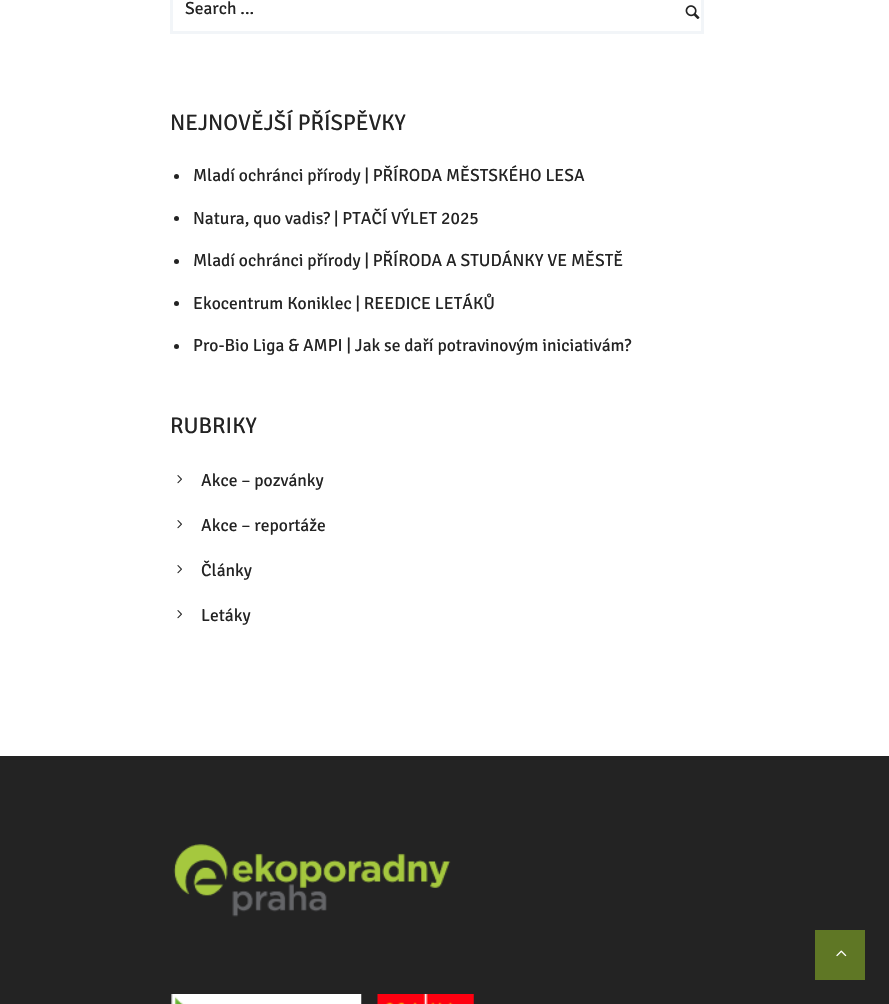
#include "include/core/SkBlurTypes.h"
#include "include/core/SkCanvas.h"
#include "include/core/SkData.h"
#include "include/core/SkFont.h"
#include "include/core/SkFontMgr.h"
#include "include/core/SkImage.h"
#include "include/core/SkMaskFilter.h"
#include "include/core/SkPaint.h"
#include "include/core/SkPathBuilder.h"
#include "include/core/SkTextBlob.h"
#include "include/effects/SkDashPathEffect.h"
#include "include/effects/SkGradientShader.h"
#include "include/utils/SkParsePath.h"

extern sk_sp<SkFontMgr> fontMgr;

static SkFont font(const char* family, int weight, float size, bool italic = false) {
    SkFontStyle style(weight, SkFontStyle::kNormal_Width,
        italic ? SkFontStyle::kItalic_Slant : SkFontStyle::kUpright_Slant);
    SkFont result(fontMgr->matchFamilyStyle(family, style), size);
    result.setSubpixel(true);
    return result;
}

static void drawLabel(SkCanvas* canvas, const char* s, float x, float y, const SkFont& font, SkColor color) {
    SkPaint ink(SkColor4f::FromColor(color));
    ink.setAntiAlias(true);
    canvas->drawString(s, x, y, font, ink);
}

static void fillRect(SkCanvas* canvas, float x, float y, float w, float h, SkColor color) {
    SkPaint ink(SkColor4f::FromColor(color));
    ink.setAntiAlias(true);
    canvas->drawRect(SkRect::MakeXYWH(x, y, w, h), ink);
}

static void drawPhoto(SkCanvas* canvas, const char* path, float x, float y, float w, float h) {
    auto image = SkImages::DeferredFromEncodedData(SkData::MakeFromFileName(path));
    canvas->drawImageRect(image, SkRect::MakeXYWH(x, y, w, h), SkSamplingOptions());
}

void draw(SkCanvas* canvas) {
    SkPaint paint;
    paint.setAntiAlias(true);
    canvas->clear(0xFFFFFFFF);
    paint.setStroke(true);
    paint.setStrokeWidth(3);
    paint.setColor(0xFFF2F5F8);
    canvas->drawRect(SkRect::MakeXYWH(171.5f, -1.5f, 531, 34), paint);
    SkFont font1 = font("Signika Negative", 400, 17.5f);
    drawLabel(canvas, "Search ...", 185, 14, font1, 0xFF232323);
    drawPhoto(canvas, "assets/img1.png", 685, 5, 15, 14);
    SkFont font2 = font("Signika Negative", 400, 22.5f);
    drawLabel(canvas, "NEJNOVĚJŠÍ PŘÍSPĚVKY", 170, 130, font2, 0xFF232323);
    paint.setStroke(false);
    paint.setColor(0xFF232323);
    canvas->drawCircle(176.5f, 176.5f, 2.5f, paint);
    drawLabel(canvas, "Mladí ochránci přírody | PŘÍRODA MĚSTSKÉHO LESA", 193, 181, font1, 0xFF232323);
    canvas->drawCircle(176.5f, 218.5f, 2.5f, paint);
    drawLabel(canvas, "Natura, quo vadis? | PTAČÍ VÝLET 2025", 193, 224, font1, 0xFF232323);
    canvas->drawCircle(176.5f, 261.5f, 2.5f, paint);
    drawLabel(canvas, "Mladí ochránci přírody | PŘÍRODA A STUDÁNKY VE MĚSTĚ", 193, 266, font1, 0xFF232323);
    canvas->drawCircle(176.5f, 303.5f, 2.5f, paint);
    drawLabel(canvas, "Ekocentrum Koniklec | REEDICE LETÁKŮ", 193, 309, font1, 0xFF232323);
    canvas->drawCircle(176.5f, 346.5f, 2.5f, paint);
    drawLabel(canvas, "Pro-Bio Liga & AMPI | Jak se daří potravinovým iniciativám?", 193, 351, font1, 0xFF232323);
    drawLabel(canvas, "RUBRIKY", 170, 433, font2, 0xFF232323);
    drawPhoto(canvas, "assets/img2.png", 177, 475, 5, 9);
    drawLabel(canvas, "Akce – pozvánky", 201, 486, font1, 0xFF232323);
    drawPhoto(canvas, "assets/img2.png", 177, 520, 5, 9);
    drawLabel(canvas, "Akce – reportáže", 201, 531, font1, 0xFF232323);
    drawPhoto(canvas, "assets/img2.png", 177, 565, 5, 9);
    drawLabel(canvas, "Články", 201, 576, font1, 0xFF232323);
    drawPhoto(canvas, "assets/img2.png", 177, 610, 5, 9);
    drawLabel(canvas, "Letáky", 201, 621, font1, 0xFF232323);
    fillRect(canvas, 0, 756, 889, 248, 0xFF232323);
    drawPhoto(canvas, "assets/img3.png", 173, 844, 278, 73);
    drawPhoto(canvas, "assets/img4.png", 171, 994, 191, 10);
    drawPhoto(canvas, "assets/img5.png", 377, 994, 97, 10);
    fillRect(canvas, 815, 930, 50, 50, 0xFF5F7725);
    drawPhoto(canvas, "assets/img6.png", 836, 950, 11, 7);
}
